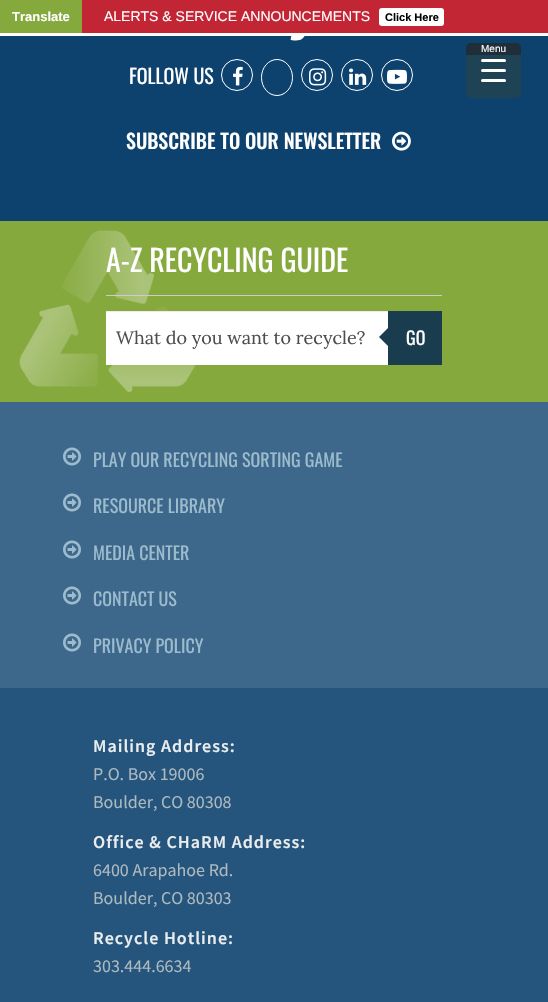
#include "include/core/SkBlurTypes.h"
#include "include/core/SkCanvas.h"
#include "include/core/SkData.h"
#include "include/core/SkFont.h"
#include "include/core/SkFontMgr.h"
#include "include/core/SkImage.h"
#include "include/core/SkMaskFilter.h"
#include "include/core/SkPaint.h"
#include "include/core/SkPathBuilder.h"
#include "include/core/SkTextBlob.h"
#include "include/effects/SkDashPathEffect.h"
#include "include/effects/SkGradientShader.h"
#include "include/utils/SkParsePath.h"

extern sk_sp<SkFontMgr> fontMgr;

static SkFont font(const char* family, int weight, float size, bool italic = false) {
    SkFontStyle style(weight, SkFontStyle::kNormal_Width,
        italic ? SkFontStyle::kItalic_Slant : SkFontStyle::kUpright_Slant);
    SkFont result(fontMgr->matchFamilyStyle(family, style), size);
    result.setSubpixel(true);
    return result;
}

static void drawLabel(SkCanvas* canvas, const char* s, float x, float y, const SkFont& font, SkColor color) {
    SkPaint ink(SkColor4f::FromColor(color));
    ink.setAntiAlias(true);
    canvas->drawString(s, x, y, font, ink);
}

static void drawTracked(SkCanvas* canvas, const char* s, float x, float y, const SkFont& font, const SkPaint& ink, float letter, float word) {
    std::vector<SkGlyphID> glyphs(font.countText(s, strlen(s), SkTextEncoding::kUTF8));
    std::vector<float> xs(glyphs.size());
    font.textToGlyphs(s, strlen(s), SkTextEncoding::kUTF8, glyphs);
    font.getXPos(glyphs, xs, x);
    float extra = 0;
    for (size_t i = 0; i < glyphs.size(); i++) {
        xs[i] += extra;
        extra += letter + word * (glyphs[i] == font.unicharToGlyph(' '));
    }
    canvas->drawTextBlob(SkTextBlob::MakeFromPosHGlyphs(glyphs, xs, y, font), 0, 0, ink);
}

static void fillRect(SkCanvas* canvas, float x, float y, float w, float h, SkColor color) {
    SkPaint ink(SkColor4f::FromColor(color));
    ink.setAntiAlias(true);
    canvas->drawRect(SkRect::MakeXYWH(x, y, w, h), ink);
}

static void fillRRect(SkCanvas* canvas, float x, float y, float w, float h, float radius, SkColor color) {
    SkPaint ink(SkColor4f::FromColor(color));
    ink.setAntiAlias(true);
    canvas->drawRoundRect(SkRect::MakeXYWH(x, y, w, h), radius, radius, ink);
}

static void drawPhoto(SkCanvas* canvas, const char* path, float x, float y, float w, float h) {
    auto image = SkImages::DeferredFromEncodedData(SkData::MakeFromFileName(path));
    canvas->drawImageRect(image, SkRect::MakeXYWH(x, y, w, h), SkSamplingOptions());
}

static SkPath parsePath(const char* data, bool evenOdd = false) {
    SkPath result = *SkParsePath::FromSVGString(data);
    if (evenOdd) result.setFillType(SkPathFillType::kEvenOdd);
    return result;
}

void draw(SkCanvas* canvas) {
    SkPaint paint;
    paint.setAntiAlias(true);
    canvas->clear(0xFF86A93E);
    SkFont font1 = font("Liberation Sans", 700, 13);
    drawLabel(canvas, "Translate", 12, 21, font1, 0xFFFFFFFF);
    fillRect(canvas, 0, 36, 548, 185, 0xFF0D426F);
    fillRRect(canvas, 466, 43, 55, 55, 5, 0xFF1D4354);
    paint.setColor(0xFF202E39);
    canvas->drawPath(parsePath("M471 43H516C519 43 521 45 521 48V55H466V48C466 45 468 43 471 43Z"), paint);
    SkFont font2 = font("Liberation Sans", 400, 10);
    drawLabel(canvas, "Menu", 481, 52, font2, 0xFFFFFFFF);
    fillRRect(canvas, 481, 69, 25, 3, 1.5f, 0xFFFFFFFF);
    fillRRect(canvas, 481, 59, 25, 3, 1.5f, 0xFFFFFFFF);
    fillRRect(canvas, 481, 79, 25, 3, 1.5f, 0xFFFFFFFF);
    drawPhoto(canvas, "assets/img1.png", 290, 36, 15, 5);
    SkFont font3 = font("Oswald", 400, 20);
    drawLabel(canvas, "FOLLOW US", 129, 84, font3, 0xFFFFFFFF);
    paint.setStroke(true);
    paint.setStrokeWidth(1);
    paint.setColor(0xFFFFFFFF);
    canvas->drawCircle(237, 75, 15.5f, paint);
    drawPhoto(canvas, "assets/img2.png", 233, 66, 10, 20);
    canvas->drawPath(parsePath("M277 59.5C285.5 59.5 292.5 67.5 292.5 77.5C292.5 87.5 285.5 95.5 277 95.5C268.5 95.5 261.5 87.5 261.5 77.5C261.5 67.5 268.5 59.5 277 59.5Z"), paint);
    canvas->drawCircle(317, 75, 15.5f, paint);
    drawPhoto(canvas, "assets/img3.png", 309, 68, 18, 18);
    canvas->drawCircle(357, 75, 15.5f, paint);
    drawPhoto(canvas, "assets/img4.png", 349, 68, 18, 17);
    canvas->drawCircle(397, 75, 15.5f, paint);
    drawPhoto(canvas, "assets/img5.png", 387, 69, 20, 15);
    SkFont font4 = font("Oswald", 500, 20);
    drawLabel(canvas, "SUBSCRIBE TO OUR NEWSLETTER", 126, 149, font4, 0xFFFFFFFF);
    drawPhoto(canvas, "assets/img6.png", 392, 131, 19, 20);
    drawPhoto(canvas, "assets/img7.png", 19, 230, 177, 162);
    SkFont font5 = font("Oswald", 400, 30);
    drawLabel(canvas, "A-Z RECYCLING GUIDE", 106, 272, font5, 0xFFFFFFFF);
    fillRect(canvas, 106, 295, 336, 1, 0xFFCCCCCC);
    fillRect(canvas, 106, 312, 282, 53, 0xFFFFFFFF);
    fillRect(canvas, 106, 311, 282, 1, 0xFFECECEC);
    SkFont font6 = font("Lora", 400, 18);
    drawLabel(canvas, "What do you want to recycle?", 116, 344, font6, 0xFF4D4D4F);
    fillRect(canvas, 388, 311, 54, 54, 0xFF193C4F);
    paint.setStroke(false);
    paint.setColor(0xFF193C4F);
    canvas->drawPath(parsePath("M389 327V347L379 337Z"), paint);
    SkFont font7 = font("Oswald", 400, 18);
    drawLabel(canvas, "GO", 406, 345, font7, 0xFFFFFFFF);
    fillRect(canvas, 0, 402, 548, 286, 0xFF3D688C);
    drawPhoto(canvas, "assets/img8.png", 63, 447, 18, 19);
    drawLabel(canvas, "PLAY OUR RECYCLING SORTING GAME", 93, 467, font7, 0xFF9CBCCD);
    drawPhoto(canvas, "assets/img8.png", 63, 493, 18, 19);
    drawLabel(canvas, "RESOURCE LIBRARY", 93, 513, font7, 0xFF9CBCCD);
    drawPhoto(canvas, "assets/img8.png", 63, 540, 18, 19);
    drawLabel(canvas, "MEDIA CENTER", 93, 560, font7, 0xFF9CBCCD);
    drawPhoto(canvas, "assets/img8.png", 63, 586, 18, 19);
    drawLabel(canvas, "CONTACT US", 93, 606, font7, 0xFF9CBCCD);
    drawPhoto(canvas, "assets/img8.png", 63, 633, 18, 19);
    drawLabel(canvas, "PRIVACY POLICY", 93, 653, font7, 0xFF9CBCCD);
    fillRect(canvas, 0, 688, 548, 314, 0xFF25557D);
    SkFont font8 = font("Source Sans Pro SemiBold", 600, 18);
    paint.setColor(0xFFEAEDEE);
    drawTracked(canvas, "Mailing Address:", 93, 752, font8, paint, 1, 0);
    SkFont font9 = font("Source Sans Pro", 400, 18);
    drawLabel(canvas, "P.O. Box 19006", 93, 780, font9, 0xFFADB9BF);
    drawLabel(canvas, "Boulder, CO 80308", 93, 808, font9, 0xFFADB9BF);
    drawTracked(canvas, "Office & CHaRM Address:", 93, 848, font8, paint, 1, 0);
    drawLabel(canvas, "6400 Arapahoe Rd.", 93, 876, font9, 0xFFADB9BF);
    drawLabel(canvas, "Boulder, CO 80303", 93, 904, font9, 0xFFADB9BF);
    drawTracked(canvas, "Recycle Hotline:", 93, 944, font8, paint, 1, 0);
    drawLabel(canvas, "303.444.6634", 93, 972, font9, 0xFFADB9BF);
    fillRect(canvas, 82, 0, 466, 33, 0xFFC22635);
    fillRect(canvas, 0, 33, 548, 3, 0xFFFFFFFF);
    SkFont font10 = font("Liberation Sans", 400, 14);
    drawLabel(canvas, "ALERTS & SERVICE ANNOUNCEMENTS", 104, 21, font10, 0xFFFFFFFF);
    fillRRect(canvas, 379, 8, 65, 18, 3, 0xFFFFFFFF);
    SkFont font11 = font("Liberation Sans", 700, 11);
    drawLabel(canvas, "Click Here", 385, 21, font11, 0xFF000000);
}
